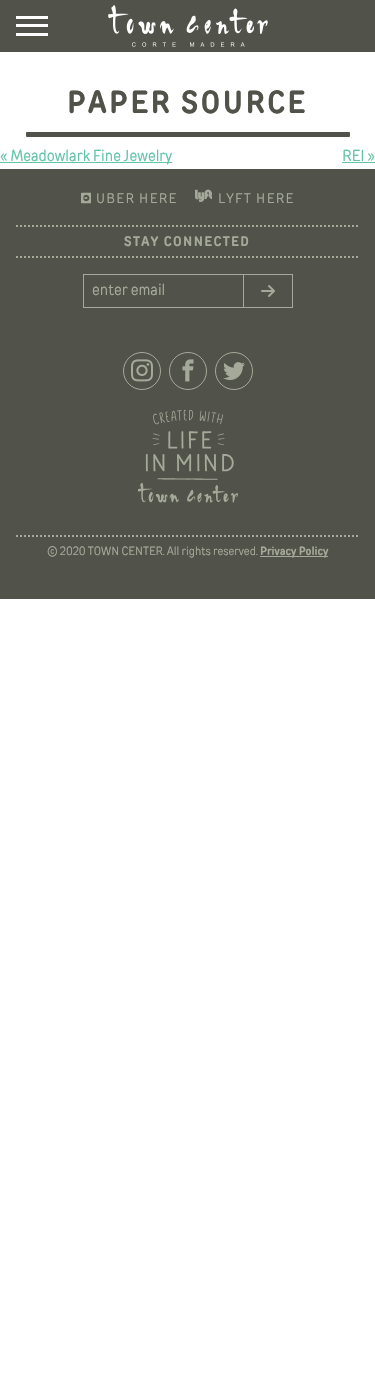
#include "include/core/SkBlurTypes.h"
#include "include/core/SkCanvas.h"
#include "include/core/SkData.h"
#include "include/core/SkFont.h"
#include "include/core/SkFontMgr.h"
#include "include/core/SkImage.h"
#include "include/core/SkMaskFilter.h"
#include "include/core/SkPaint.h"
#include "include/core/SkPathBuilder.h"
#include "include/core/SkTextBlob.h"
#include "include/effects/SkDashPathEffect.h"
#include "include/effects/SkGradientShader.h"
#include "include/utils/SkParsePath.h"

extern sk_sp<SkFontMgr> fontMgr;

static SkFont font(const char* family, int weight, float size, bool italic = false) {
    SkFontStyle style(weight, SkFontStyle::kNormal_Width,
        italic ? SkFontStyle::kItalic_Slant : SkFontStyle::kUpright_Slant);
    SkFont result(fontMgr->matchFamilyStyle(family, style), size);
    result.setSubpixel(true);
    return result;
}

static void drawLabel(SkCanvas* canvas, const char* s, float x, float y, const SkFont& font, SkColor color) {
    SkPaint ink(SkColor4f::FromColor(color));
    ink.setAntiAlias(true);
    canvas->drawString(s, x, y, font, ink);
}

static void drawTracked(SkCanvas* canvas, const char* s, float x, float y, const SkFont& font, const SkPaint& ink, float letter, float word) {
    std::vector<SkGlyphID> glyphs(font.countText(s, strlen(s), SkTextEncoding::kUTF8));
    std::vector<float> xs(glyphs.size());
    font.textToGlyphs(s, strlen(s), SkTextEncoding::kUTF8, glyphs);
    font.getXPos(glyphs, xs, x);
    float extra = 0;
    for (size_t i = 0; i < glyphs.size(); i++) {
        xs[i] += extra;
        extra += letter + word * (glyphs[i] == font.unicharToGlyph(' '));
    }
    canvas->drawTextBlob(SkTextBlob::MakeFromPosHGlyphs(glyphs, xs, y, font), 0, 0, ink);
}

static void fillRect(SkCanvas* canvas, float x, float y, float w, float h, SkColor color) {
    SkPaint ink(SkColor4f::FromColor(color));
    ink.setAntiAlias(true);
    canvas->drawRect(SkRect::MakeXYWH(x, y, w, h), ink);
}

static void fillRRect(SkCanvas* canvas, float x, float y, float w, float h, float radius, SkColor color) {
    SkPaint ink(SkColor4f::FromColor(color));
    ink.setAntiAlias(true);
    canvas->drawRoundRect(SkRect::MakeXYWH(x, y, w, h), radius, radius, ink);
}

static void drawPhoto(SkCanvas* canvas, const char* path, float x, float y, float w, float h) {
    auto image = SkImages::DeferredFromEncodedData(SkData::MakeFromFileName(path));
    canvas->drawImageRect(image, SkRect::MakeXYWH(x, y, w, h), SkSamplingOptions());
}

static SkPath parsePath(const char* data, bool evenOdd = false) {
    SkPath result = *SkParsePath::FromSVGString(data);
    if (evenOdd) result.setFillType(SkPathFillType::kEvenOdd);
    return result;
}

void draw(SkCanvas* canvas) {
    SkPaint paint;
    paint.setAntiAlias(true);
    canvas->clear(0xFFFFFFFF);
    fillRect(canvas, 0, 0, 375, 52, 0xFF51534A);
    fillRect(canvas, 16, 33, 32, 3, 0xFFFFFFFF);
    fillRect(canvas, 16, 16, 32, 3, 0xFFFFFFFF);
    fillRect(canvas, 16, 24, 32, 3, 0xFFFFFFFF);
    drawPhoto(canvas, "assets/img1.png", 108, 5, 160, 42);
    SkFont font1 = font("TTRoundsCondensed", 400, 32);
    paint.setColor(0xFF51534A);
    drawTracked(canvas, "PAPER SOURCE", 67, 113, font1, paint, 2.5f, 0);
    fillRRect(canvas, 26, 132, 324, 5, 1, 0xFF51534A);
    fillRect(canvas, 0, 162, 172, 1, 0xFF63C4A6);
    SkFont font2 = font("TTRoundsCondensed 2", 400, 16);
    drawLabel(canvas, "« Meadowlark Fine Jewelry", 0, 161, font2, 0xFF63C4A6);
    drawLabel(canvas, "REI »", 342, 161, font2, 0xFF63C4A6);
    fillRect(canvas, 342, 162, 33, 1, 0xFF63C4A6);
    fillRect(canvas, 0, 169, 375, 430, 0xFF51534A);
    drawPhoto(canvas, "assets/img2.png", 81, 192, 10, 12);
    SkFont font3 = font("TTRoundsCondensed 2", 400, 14);
    paint.setColor(0xFFA5A999);
    drawTracked(canvas, "UBER HERE", 96, 203, font3, paint, 1.4f, 0);
    drawPhoto(canvas, "assets/img3.png", 195, 189, 17, 13);
    drawTracked(canvas, "LYFT HERE", 218, 203, font3, paint, 1.4f, 0);
    paint.setStroke(true);
    paint.setStrokeWidth(2);
    paint.setPathEffect(SkDashPathEffect::Make({{2, 2}}, 0));
    canvas->drawPath(parsePath("M16 226H359"), paint);
    paint.setPathEffect(nullptr);
    paint.setPathEffect(SkDashPathEffect::Make({{2, 2}}, 0));
    canvas->drawPath(parsePath("M16 257H359"), paint);
    paint.setPathEffect(nullptr);
    SkFont font4 = font("TTRoundsCondensed", 400, 14);
    paint.setStroke(false);
    drawTracked(canvas, "STAY CONNECTED", 124, 246, font4, paint, 1.4f, 0);
    fillRect(canvas, 83, 274, 160, 1, 0xFFA5A999);
    fillRect(canvas, 83, 307, 160, 1, 0xFFA5A999);
    fillRect(canvas, 83, 274, 1, 34, 0xFFA5A999);
    drawLabel(canvas, "enter email", 92, 295, font2, 0xFFA5A999);
    paint.setStroke(true);
    paint.setStrokeWidth(1);
    canvas->drawRect(SkRect::MakeXYWH(243.5f, 274.5f, 49, 33), paint);
    drawPhoto(canvas, "assets/img4.png", 261, 285, 14, 12);
    canvas->drawCircle(142, 371, 18.5f, paint);
    drawPhoto(canvas, "assets/img5.png", 131, 359, 22, 23);
    canvas->drawCircle(188, 371, 18.5f, paint);
    drawPhoto(canvas, "assets/img6.png", 182, 359, 12, 23);
    canvas->drawCircle(234, 371, 18.5f, paint);
    drawPhoto(canvas, "assets/img7.png", 223, 362, 22, 18);
    drawPhoto(canvas, "assets/img8.png", 138, 410, 100, 93);
    paint.setStrokeWidth(2);
    paint.setPathEffect(SkDashPathEffect::Make({{2, 2}}, 0));
    canvas->drawPath(parsePath("M16 536H359"), paint);
    paint.setPathEffect(nullptr);
    SkFont font5 = font("TTRoundsCondensed 2", 400, 12);
    drawLabel(canvas, "© 2020 TOWN CENTER. All rights reserved.", 47, 555, font5, 0xFFA5A999);
    fillRect(canvas, 260, 556, 68, 1, 0xFFA5A999);
    SkFont font6 = font("TTRoundsCondensed", 400, 12);
    drawLabel(canvas, "Privacy Policy", 260, 555, font6, 0xFFA5A999);
}
